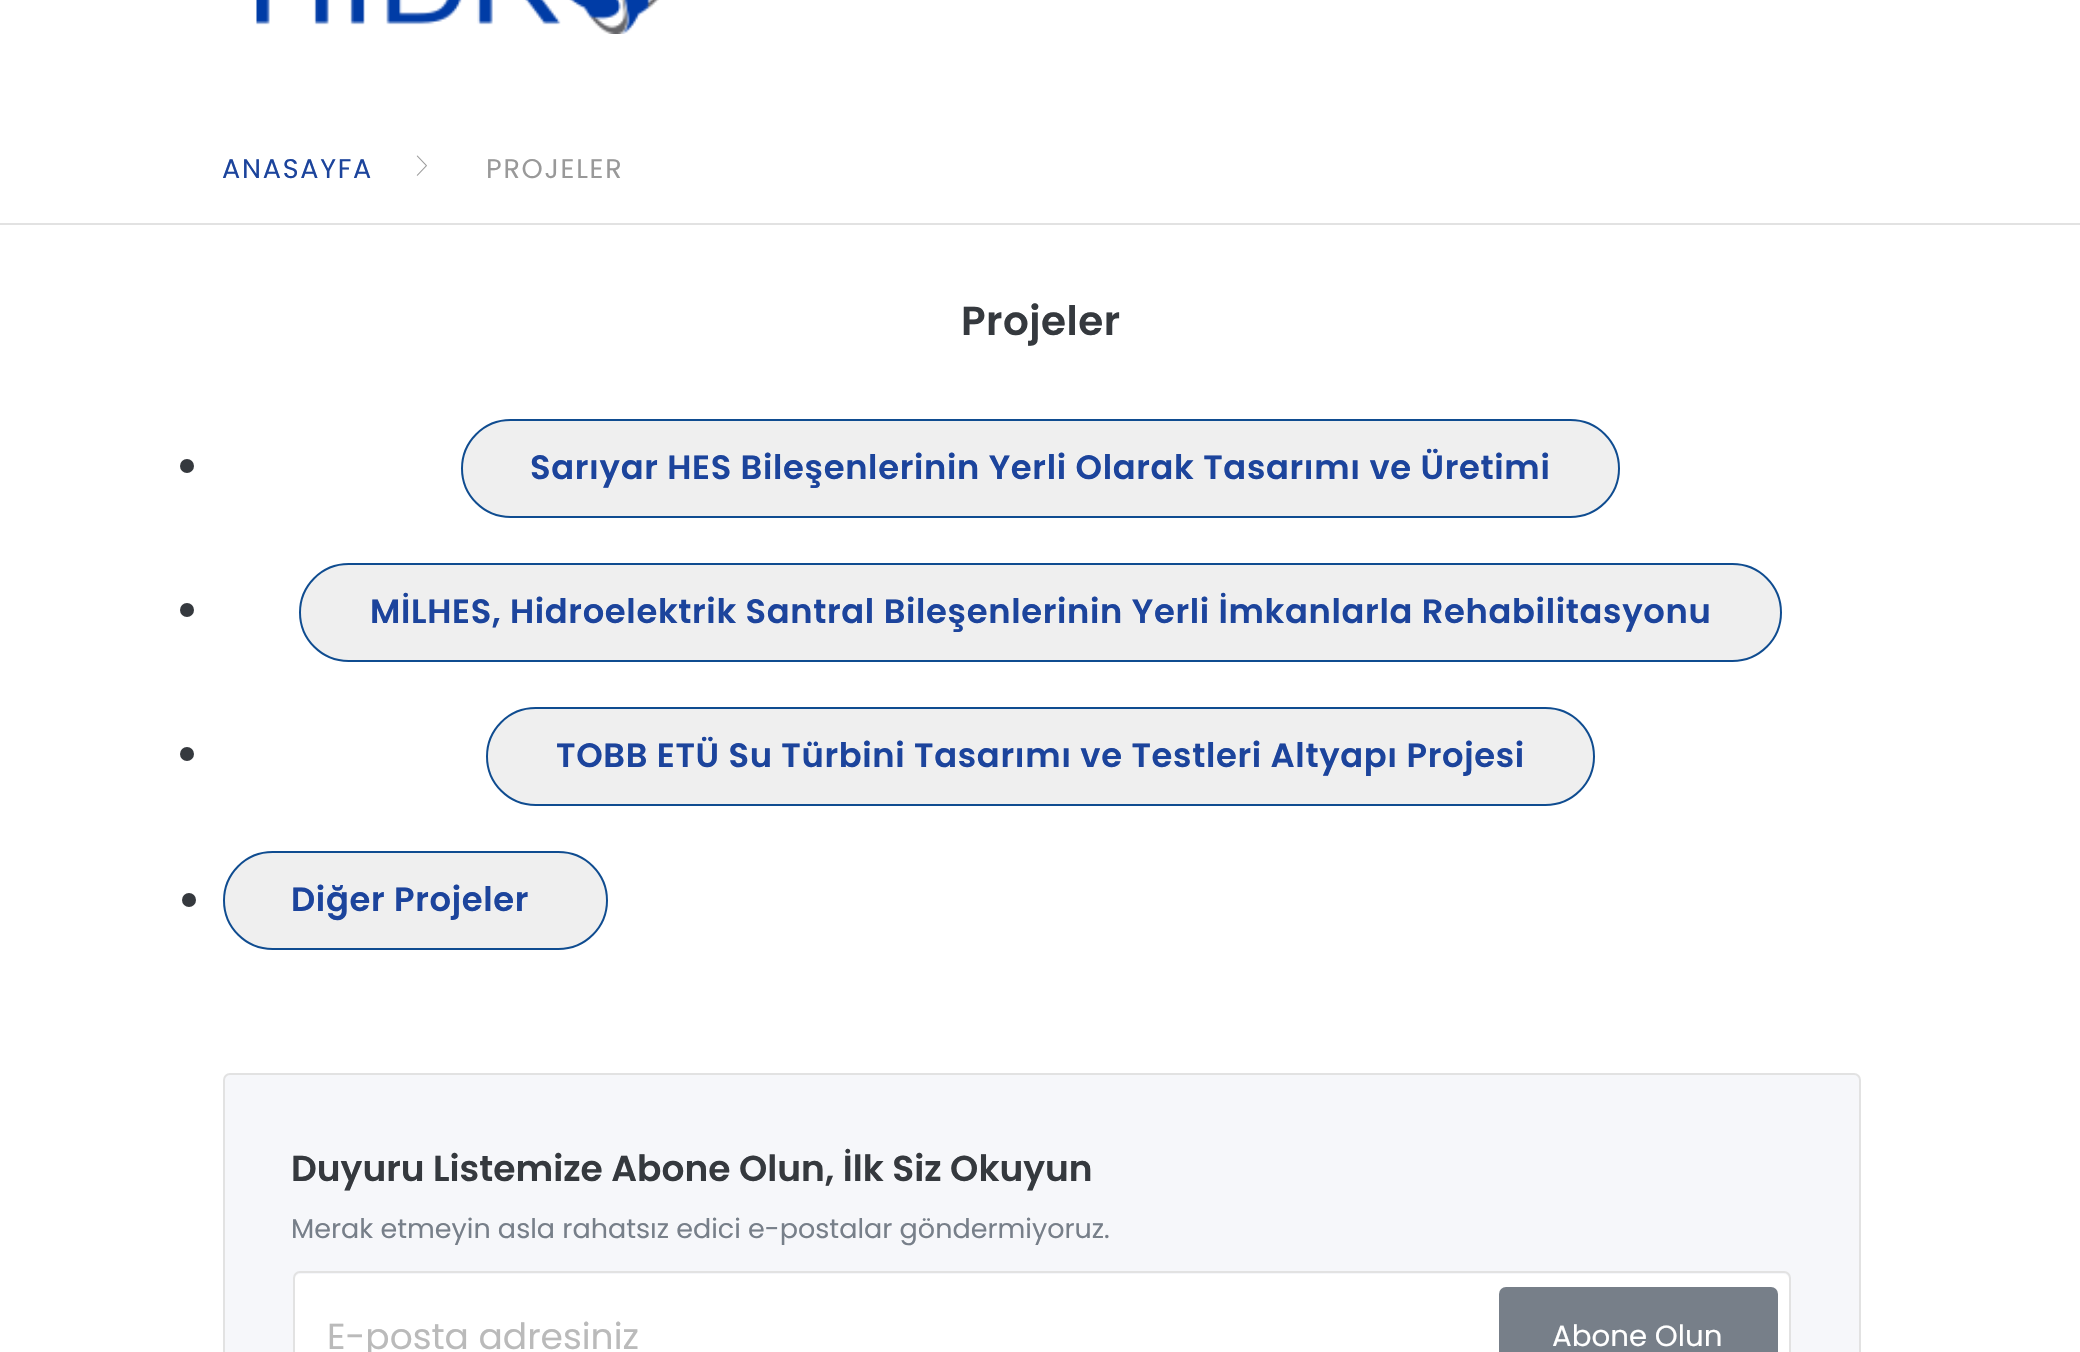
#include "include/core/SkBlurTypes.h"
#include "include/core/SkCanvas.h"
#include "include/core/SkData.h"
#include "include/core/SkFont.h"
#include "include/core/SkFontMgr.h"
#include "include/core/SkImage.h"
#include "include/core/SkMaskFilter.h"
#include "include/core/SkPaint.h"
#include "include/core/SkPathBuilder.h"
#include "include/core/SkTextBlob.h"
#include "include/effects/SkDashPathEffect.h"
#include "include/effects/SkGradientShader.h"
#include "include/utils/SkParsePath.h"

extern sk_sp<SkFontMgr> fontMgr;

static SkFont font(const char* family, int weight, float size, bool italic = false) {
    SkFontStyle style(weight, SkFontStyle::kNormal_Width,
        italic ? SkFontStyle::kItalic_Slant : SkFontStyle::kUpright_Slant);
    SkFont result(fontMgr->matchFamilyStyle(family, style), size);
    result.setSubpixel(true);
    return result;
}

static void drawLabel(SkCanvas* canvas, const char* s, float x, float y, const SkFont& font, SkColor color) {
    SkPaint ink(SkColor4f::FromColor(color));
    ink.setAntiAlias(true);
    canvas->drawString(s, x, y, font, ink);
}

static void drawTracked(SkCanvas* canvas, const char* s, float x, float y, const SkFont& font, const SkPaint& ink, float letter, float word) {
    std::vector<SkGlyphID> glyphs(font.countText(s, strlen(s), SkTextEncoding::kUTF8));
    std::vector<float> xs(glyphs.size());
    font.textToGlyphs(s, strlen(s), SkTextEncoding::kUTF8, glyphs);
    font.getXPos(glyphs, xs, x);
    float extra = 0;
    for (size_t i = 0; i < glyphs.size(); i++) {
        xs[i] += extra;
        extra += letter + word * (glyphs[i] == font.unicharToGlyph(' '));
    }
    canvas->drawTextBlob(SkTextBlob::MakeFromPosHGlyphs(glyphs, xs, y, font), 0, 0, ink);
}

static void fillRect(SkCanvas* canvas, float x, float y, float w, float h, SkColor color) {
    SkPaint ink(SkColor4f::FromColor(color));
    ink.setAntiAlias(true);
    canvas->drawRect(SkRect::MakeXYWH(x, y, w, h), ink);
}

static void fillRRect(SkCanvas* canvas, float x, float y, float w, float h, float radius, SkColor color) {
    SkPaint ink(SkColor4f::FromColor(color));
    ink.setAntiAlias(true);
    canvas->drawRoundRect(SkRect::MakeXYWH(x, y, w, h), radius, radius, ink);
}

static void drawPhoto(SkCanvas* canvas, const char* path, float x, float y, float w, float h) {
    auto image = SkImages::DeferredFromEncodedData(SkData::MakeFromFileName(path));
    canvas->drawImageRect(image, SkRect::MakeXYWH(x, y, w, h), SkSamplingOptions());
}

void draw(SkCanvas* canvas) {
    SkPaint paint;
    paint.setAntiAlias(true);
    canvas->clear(0xFFFFFFFF);
    drawPhoto(canvas, "assets/img1.png", 256, 0, 403, 34);
    fillRect(canvas, 0, 223, 2080, 2, 0xFFE2E2E2);
    SkFont font1 = font("Poppins", 400, 27);
    paint.setColor(0xFF1C449C);
    drawTracked(canvas, "ANASAYFA", 222, 178, font1, paint, 1.75f, 0);
    drawPhoto(canvas, "assets/img2.png", 416, 155, 11, 21);
    paint.setColor(0xFF999999);
    drawTracked(canvas, "PROJELER", 486, 178, font1, paint, 1.75f, 0);
    SkFont font2 = font("Poppins", 600, 40.5f);
    paint.setColor(0xFF35393E);
    drawTracked(canvas, "Projeler", 961, 335, font2, paint, 0.5f, 0);
    canvas->drawCircle(187, 466, 7, paint);
    paint.setColor(0xFFEFEFEF);
    canvas->drawRoundRect(SkRect::MakeXYWH(462, 420, 1157, 97), 48.5f, 48.5f, paint);
    paint.setStroke(true);
    paint.setStrokeWidth(2);
    paint.setColor(0xFF0F4C90);
    canvas->drawRoundRect(SkRect::MakeXYWH(462, 420, 1157, 97), 48.5f, 48.5f, paint);
    SkFont font3 = font("Poppins", 600, 33.75f);
    paint.setStroke(false);
    paint.setColor(0xFF1C449C);
    drawTracked(canvas, "Sarıyar HES Bileşenlerinin Yerli Olarak Tasarımı ve Üretimi", 530, 479, font3, paint, 0.67f, 0);
    paint.setColor(0xFF35393E);
    canvas->drawCircle(187, 610, 7, paint);
    paint.setColor(0xFFEFEFEF);
    canvas->drawRoundRect(SkRect::MakeXYWH(300, 564, 1481, 97), 48.5f, 48.5f, paint);
    paint.setStroke(true);
    paint.setColor(0xFF0F4C90);
    canvas->drawRoundRect(SkRect::MakeXYWH(300, 564, 1481, 97), 48.5f, 48.5f, paint);
    paint.setStroke(false);
    paint.setColor(0xFF1C449C);
    drawTracked(canvas, "MİLHES, Hidroelektrik Santral Bileşenlerinin Yerli İmkanlarla Rehabilitasyonu", 370, 623, font3, paint, 0.67f, 0);
    paint.setColor(0xFF35393E);
    canvas->drawCircle(187, 754, 7, paint);
    paint.setColor(0xFFEFEFEF);
    canvas->drawRoundRect(SkRect::MakeXYWH(487, 708, 1107, 97), 48.5f, 48.5f, paint);
    paint.setStroke(true);
    paint.setColor(0xFF0F4C90);
    canvas->drawRoundRect(SkRect::MakeXYWH(487, 708, 1107, 97), 48.5f, 48.5f, paint);
    paint.setStroke(false);
    paint.setColor(0xFF1C449C);
    drawTracked(canvas, "TOBB ETÜ Su Türbini Tasarımı ve Testleri Altyapı Projesi", 556, 767, font3, paint, 0.67f, 0);
    paint.setColor(0xFF35393E);
    canvas->drawCircle(189, 900, 7, paint);
    paint.setColor(0xFFEFEFEF);
    canvas->drawRoundRect(SkRect::MakeXYWH(224, 852, 383, 97), 48.5f, 48.5f, paint);
    paint.setStroke(true);
    paint.setColor(0xFF0F4C90);
    canvas->drawRoundRect(SkRect::MakeXYWH(224, 852, 383, 97), 48.5f, 48.5f, paint);
    paint.setStroke(false);
    paint.setColor(0xFF1C449C);
    drawTracked(canvas, "Diğer Projeler", 291, 911, font3, paint, 0.67f, 0);
    paint.setColor(0xFFF6F7FA);
    canvas->drawRoundRect(SkRect::MakeXYWH(224, 1074, 1636, 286), 6, 6, paint);
    paint.setStroke(true);
    paint.setColor(0xFFE2E2E2);
    canvas->drawRoundRect(SkRect::MakeXYWH(224, 1074, 1636, 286), 6, 6, paint);
    SkFont font4 = font("Poppins", 600, 36);
    drawLabel(canvas, "Duyuru Listemize Abone Olun, İlk Siz Okuyun", 291, 1181, font4, 0xFF35393E);
    drawLabel(canvas, "Merak etmeyin asla rahatsız edici e-postalar göndermiyoruz.", 291, 1238, font1, 0xFF777F89);
    fillRRect(canvas, 295, 1274, 1494, 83, 5, 0xFFFFFFFF);
    canvas->drawRoundRect(SkRect::MakeXYWH(294, 1272, 1496, 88), 6, 6, paint);
    SkFont font5 = font("Poppins", 400, 36);
    drawLabel(canvas, "E-posta adresiniz", 327, 1349, font5, 0xFFBABABA);
    fillRRect(canvas, 1499, 1287, 279, 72, 7, 0xFF777F89);
    SkFont font6 = font("Poppins", 400, 29.25f);
    drawLabel(canvas, "Abone Olun", 1552, 1346, font6, 0xFFFFFFFF);
}
